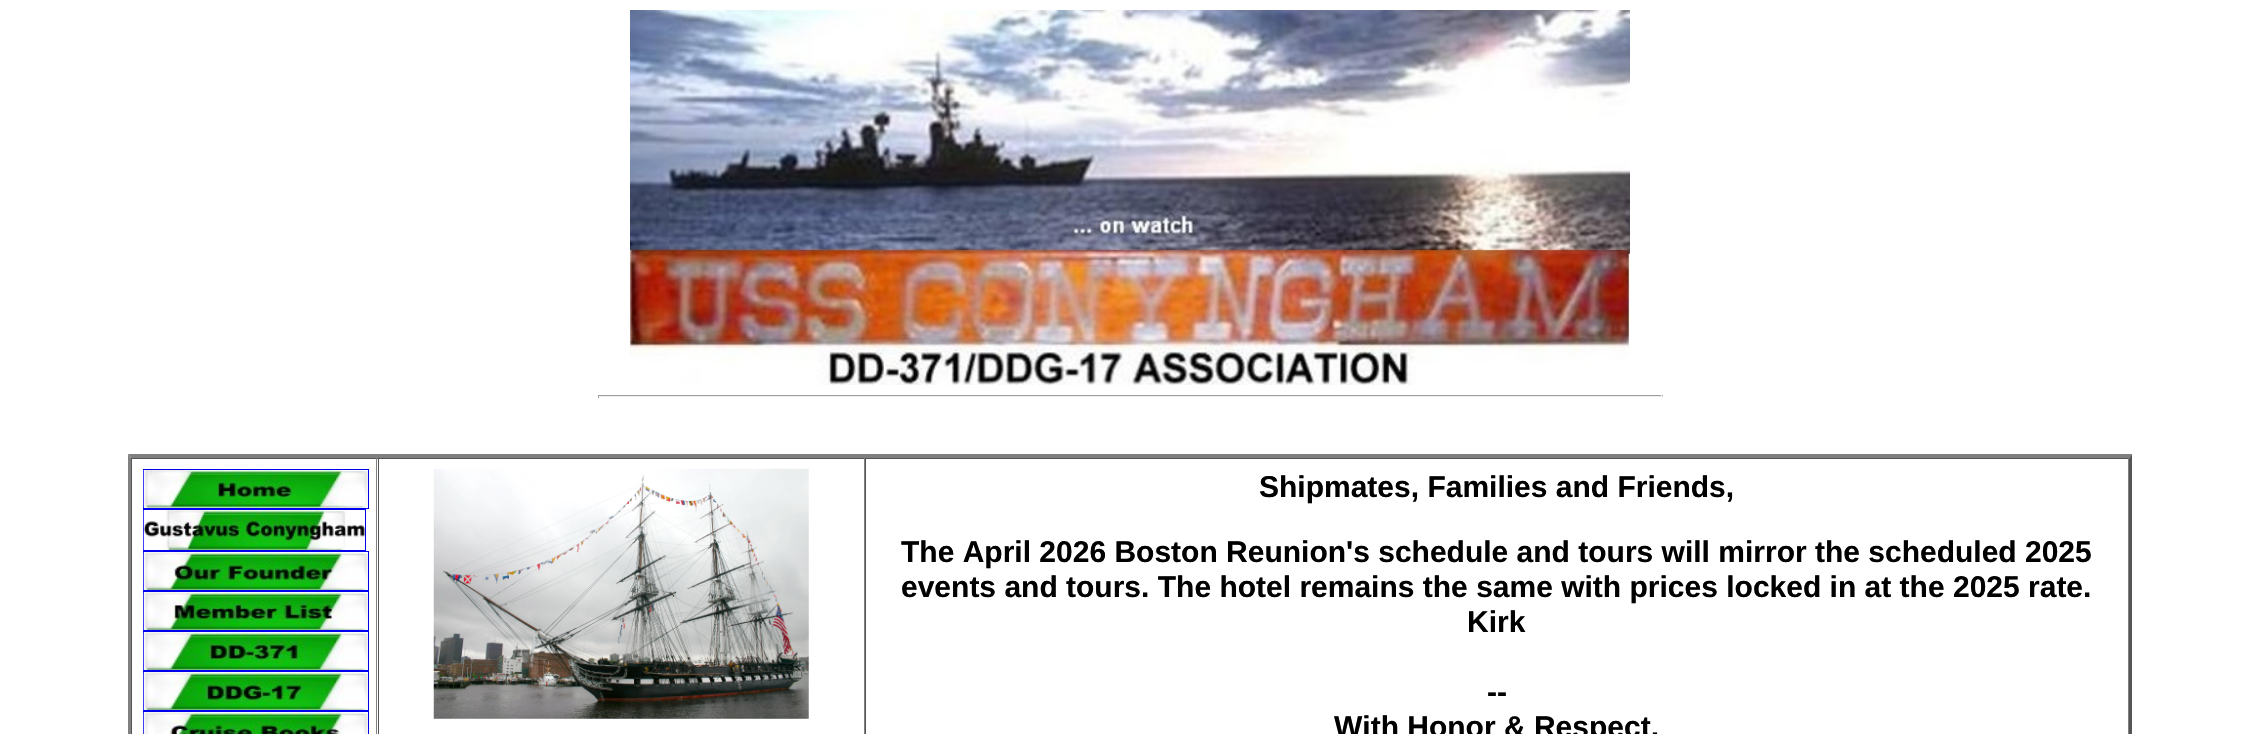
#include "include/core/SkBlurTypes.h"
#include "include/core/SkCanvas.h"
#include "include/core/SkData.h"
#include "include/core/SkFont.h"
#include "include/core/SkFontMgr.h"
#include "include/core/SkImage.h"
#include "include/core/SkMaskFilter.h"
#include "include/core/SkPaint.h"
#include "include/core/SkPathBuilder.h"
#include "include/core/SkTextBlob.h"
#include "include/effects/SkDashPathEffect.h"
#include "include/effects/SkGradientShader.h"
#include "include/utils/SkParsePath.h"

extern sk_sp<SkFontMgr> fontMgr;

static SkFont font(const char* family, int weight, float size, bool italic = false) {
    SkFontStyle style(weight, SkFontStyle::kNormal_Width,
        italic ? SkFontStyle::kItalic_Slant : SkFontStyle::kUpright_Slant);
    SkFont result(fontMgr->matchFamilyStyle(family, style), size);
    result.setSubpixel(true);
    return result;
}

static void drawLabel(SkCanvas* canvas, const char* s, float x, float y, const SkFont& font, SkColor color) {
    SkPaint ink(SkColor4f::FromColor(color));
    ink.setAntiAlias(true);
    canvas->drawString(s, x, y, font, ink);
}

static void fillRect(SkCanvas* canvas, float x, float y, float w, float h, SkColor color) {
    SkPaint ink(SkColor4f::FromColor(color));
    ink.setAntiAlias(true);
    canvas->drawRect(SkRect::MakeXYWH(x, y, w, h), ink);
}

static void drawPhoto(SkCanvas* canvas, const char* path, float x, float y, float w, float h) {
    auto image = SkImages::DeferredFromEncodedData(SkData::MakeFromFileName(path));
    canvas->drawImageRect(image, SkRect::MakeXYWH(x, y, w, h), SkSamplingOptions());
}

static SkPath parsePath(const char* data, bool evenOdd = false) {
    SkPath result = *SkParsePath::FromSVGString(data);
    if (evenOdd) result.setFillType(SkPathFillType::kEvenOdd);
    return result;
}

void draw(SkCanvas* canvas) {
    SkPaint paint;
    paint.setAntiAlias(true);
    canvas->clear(0xFFFFFFFF);
    drawPhoto(canvas, "assets/img1.png", 630, 10, 1000, 375);
    fillRect(canvas, 598, 395, 1065, 1, 0xFF9F9F9F);
    fillRect(canvas, 1661, 395, 1, 3, 0xFFEEEEEE);
    fillRect(canvas, 598, 396, 1065, 1, 0xFFEEEEEE);
    fillRect(canvas, 598, 395, 1, 3, 0xFF9F9F9F);
    paint.setColor(0xFF808080);
    canvas->drawPath(parsePath("M128 454H2132L2129 458H131Z"), paint);
    paint.setColor(0xFF555555);
    canvas->drawPath(parsePath("M2132 454V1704L2129 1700V458Z"), paint);
    paint.setColor(0xFF808080);
    canvas->drawPath(parsePath("M128 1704V454L131 458V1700Z"), paint);
    fillRect(canvas, 131, 458, 1998, 1, 0xFF555555);
    fillRect(canvas, 376, 458, 1, 276, 0xFF808080);
    fillRect(canvas, 131, 458, 1, 276, 0xFF555555);
    paint.setStroke(true);
    paint.setStrokeWidth(1);
    paint.setColor(0xFF0000EE);
    canvas->drawRect(SkRect::MakeXYWH(143.5f, 469.5f, 225, 39), paint);
    drawPhoto(canvas, "assets/img2.png", 143, 470, 225, 38);
    canvas->drawRect(SkRect::MakeXYWH(143.5f, 509.5f, 222, 41), paint);
    drawPhoto(canvas, "assets/img3.png", 143, 510, 222, 40);
    canvas->drawRect(SkRect::MakeXYWH(143.5f, 551.5f, 225, 39), paint);
    drawPhoto(canvas, "assets/img4.png", 143, 552, 225, 38);
    canvas->drawRect(SkRect::MakeXYWH(143.5f, 591.5f, 225, 39), paint);
    drawPhoto(canvas, "assets/img5.png", 143, 592, 225, 38);
    canvas->drawRect(SkRect::MakeXYWH(143.5f, 631.5f, 225, 39), paint);
    drawPhoto(canvas, "assets/img6.png", 143, 632, 225, 38);
    canvas->drawRect(SkRect::MakeXYWH(143.5f, 671.5f, 225, 39), paint);
    drawPhoto(canvas, "assets/img7.png", 143, 672, 225, 38);
    canvas->drawRect(SkRect::MakeXYWH(143.5f, 711.5f, 225, 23), paint);
    drawPhoto(canvas, "assets/img8.png", 143, 712, 225, 22);
    fillRect(canvas, 864, 458, 1, 276, 0xFF808080);
    fillRect(canvas, 378, 458, 1, 276, 0xFF555555);
    drawPhoto(canvas, "assets/img9.png", 433, 468, 376, 251);
    fillRect(canvas, 2128, 458, 1, 276, 0xFF808080);
    fillRect(canvas, 865, 458, 1, 276, 0xFF555555);
    SkFont font1 = font("Liberation Sans", 700, 30);
    drawLabel(canvas, "Shipmates, Families and Friends,", 1259, 497, font1, 0xFF000000);
    drawLabel(canvas, "The April 2026 Boston Reunion's schedule and tours will mirror the scheduled 2025", 901, 562, font1, 0xFF000000);
    drawLabel(canvas, "events and tours. The hotel remains the same with prices locked in at the 2025 rate.", 901, 597, font1, 0xFF000000);
    drawLabel(canvas, "Kirk", 1467, 632, font1, 0xFF000000);
    drawLabel(canvas, "--", 1487, 702, font1, 0xFF000000);
    drawLabel(canvas, "With Honor & Respect,", 1334, 737, font1, 0xFF000000);
}
